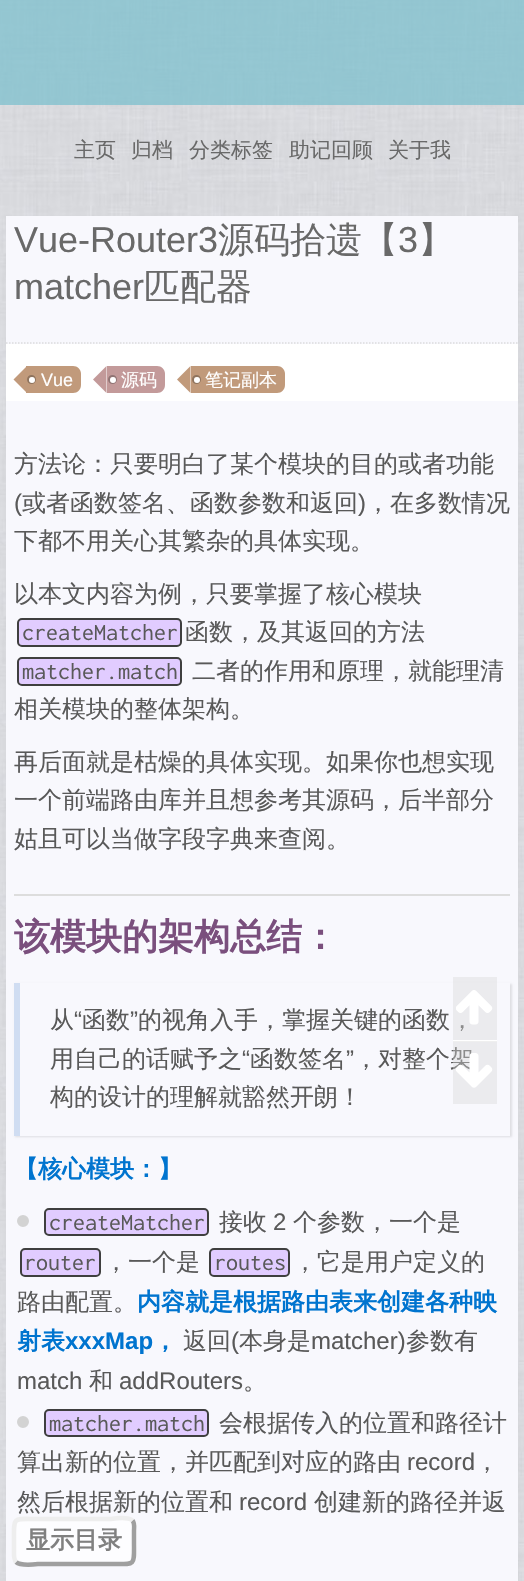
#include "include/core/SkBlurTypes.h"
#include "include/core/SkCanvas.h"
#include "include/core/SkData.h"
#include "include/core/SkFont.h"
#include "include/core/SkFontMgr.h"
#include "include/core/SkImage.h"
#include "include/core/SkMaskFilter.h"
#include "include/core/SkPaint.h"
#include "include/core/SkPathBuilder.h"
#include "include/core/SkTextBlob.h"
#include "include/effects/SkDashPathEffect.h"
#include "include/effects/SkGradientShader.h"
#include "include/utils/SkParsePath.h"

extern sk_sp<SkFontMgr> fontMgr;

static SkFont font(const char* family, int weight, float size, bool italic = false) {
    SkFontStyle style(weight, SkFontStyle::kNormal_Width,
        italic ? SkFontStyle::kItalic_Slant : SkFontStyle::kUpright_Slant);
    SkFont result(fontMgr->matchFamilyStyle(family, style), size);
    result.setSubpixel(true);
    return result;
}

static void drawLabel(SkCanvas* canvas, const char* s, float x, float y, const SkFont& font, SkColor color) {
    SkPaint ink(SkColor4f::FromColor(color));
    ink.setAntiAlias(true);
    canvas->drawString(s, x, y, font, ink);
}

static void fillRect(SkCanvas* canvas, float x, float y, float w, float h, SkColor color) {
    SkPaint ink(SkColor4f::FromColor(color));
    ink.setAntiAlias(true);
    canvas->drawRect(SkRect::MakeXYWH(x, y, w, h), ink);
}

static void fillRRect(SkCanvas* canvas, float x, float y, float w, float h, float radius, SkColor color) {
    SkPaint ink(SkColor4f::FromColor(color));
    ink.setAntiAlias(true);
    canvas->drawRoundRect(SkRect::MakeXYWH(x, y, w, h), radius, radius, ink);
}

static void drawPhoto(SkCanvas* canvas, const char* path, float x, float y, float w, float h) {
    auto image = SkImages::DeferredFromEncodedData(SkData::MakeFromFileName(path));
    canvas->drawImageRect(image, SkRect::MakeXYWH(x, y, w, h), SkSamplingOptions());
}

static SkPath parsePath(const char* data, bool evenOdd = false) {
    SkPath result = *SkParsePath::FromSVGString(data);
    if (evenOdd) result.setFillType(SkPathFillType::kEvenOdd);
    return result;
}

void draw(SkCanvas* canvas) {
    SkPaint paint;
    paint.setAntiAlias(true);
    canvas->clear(0xFFFFFFFF);
    drawPhoto(canvas, "assets/img1.png", 0, 0, 524, 1581);
    fillRect(canvas, 0, 0, 524, 105, 0xB376BECC);
    SkFont font1 = font("WenQuanYi Zen Hei", 500, 21);
    drawLabel(canvas, "主页", 74, 157, font1, 0xFF696969);
    drawLabel(canvas, "归档", 131, 157, font1, 0xFF696969);
    drawLabel(canvas, "分类标签", 189, 157, font1, 0xFF696969);
    drawLabel(canvas, "助记回顾", 289, 157, font1, 0xFF696969);
    drawLabel(canvas, "关于我", 388, 157, font1, 0xFF696969);
    fillRect(canvas, 6, 344, 512, 57, 0xFFFFFFFF);
    fillRect(canvas, 6, 216, 512, 128, 0xFFF8F8FD);
    paint.setStroke(true);
    paint.setStrokeWidth(1.5f);
    paint.setColor(0xFFDDDDDD);
    paint.setPathEffect(SkDashPathEffect::Make({{1.5f, 1.5f}}, 0));
    canvas->drawPath(parsePath("M6 343H517.5"), paint);
    paint.setPathEffect(nullptr);
    SkFont font2 = font("Liberation Sans", 400, 36);
    drawLabel(canvas, "Vue-Router3", 14, 252, font2, 0xFF696969);
    SkFont font3 = font("WenQuanYi Zen Hei", 500, 36);
    drawLabel(canvas, "源码拾遗【", 218, 252, font3, 0xFF696969);
    drawLabel(canvas, "3", 398, 252, font2, 0xFF696969);
    drawLabel(canvas, "】", 418, 252, font3, 0xFF696969);
    drawLabel(canvas, "matcher", 14, 299, font2, 0xFF696969);
    drawLabel(canvas, "匹配器", 144, 299, font3, 0xFF696969);
    paint.setStroke(false);
    paint.setColor(0xFFC19A7B);
    canvas->drawPath(parsePath("M26 366H73C77.5 366 81 369.5 81 374V385C81 389.5 77.5 393 73 393H26Z"), paint);
    canvas->drawPath(parsePath("M27 366V393L13.5 379.5Z"), paint);
    paint.setStroke(true);
    paint.setStrokeWidth(2);
    paint.setColor(0xFF8F745E);
    canvas->drawCircle(31.5f, 379.5f, 3.5f, paint);
    paint.setStroke(false);
    paint.setColor(0xFFFFFFFF);
    canvas->drawCircle(32, 380, 3, paint);
    SkFont font4 = font("Liberation Sans", 400, 18);
    drawLabel(canvas, "Vue", 41, 386, font4, 0xFFFFFFFF);
    paint.setColor(0xFFC39A9A);
    canvas->drawPath(parsePath("M107 366H157C161.5 366 165 369.5 165 374V385C165 389.5 161.5 393 157 393H107Z"), paint);
    canvas->drawPath(parsePath("M106.5 366V393L93 379.5Z"), paint);
    paint.setStroke(true);
    paint.setColor(0xFF907474);
    canvas->drawCircle(112.5f, 379.5f, 3.5f, paint);
    paint.setStroke(false);
    paint.setColor(0xFFFFFFFF);
    canvas->drawCircle(113, 380, 3, paint);
    SkFont font5 = font("WenQuanYi Zen Hei", 500, 18);
    drawLabel(canvas, "源码", 121, 386, font5, 0xFFFFFFFF);
    paint.setColor(0xFFC19A7B);
    canvas->drawPath(parsePath("M191 366H277C281.5 366 285 369.5 285 374V385C285 389.5 281.5 393 277 393H191Z"), paint);
    canvas->drawPath(parsePath("M190.5 366V393L177 379.5Z"), paint);
    paint.setStroke(true);
    paint.setColor(0xFF8F745E);
    canvas->drawCircle(196.5f, 379.5f, 3.5f, paint);
    paint.setStroke(false);
    paint.setColor(0xFFFFFFFF);
    canvas->drawCircle(197, 380, 3, paint);
    drawLabel(canvas, "笔记副本", 205, 386, font5, 0xFFFFFFFF);
    fillRect(canvas, 6, 401, 512, 1180, 0xFFF8F8FD);
    SkFont font6 = font("WenQuanYi Zen Hei", 500, 24);
    drawLabel(canvas, "方法论：只要明白了某个模块的目的或者功能", 14, 472, font6, 0xFF595959);
    SkFont font7 = font("Liberation Sans", 400, 24);
    drawLabel(canvas, "(", 14, 511, font7, 0xFF595959);
    drawLabel(canvas, "或者函数签名、函数参数和返回", 22, 511, font6, 0xFF595959);
    drawLabel(canvas, ")", 358, 511, font7, 0xFF595959);
    drawLabel(canvas, "，在多数情况", 366, 511, font6, 0xFF595959);
    drawLabel(canvas, "下都不用关心其繁杂的具体实现。", 14, 549, font6, 0xFF595959);
    drawLabel(canvas, "以本文内容为例，只要掌握了核心模块", 14, 602, font6, 0xFF595959);
    paint.setColor(0xFFE1CCFF);
    canvas->drawRoundRect(SkRect::MakeXYWH(18, 619, 163, 27), 4, 4, paint);
    paint.setStroke(true);
    paint.setColor(0xFF3F3F3F);
    canvas->drawRoundRect(SkRect::MakeXYWH(18, 619, 163, 27), 4, 4, paint);
    SkFont font8 = font("Inconsolata", 400, 24);
    drawLabel(canvas, "createMatcher", 22, 640, font8, 0xFF595959);
    drawLabel(canvas, "函数，及其返回的方法", 185, 640, font6, 0xFF595959);
    paint.setStroke(false);
    paint.setColor(0xFFE1CCFF);
    canvas->drawRoundRect(SkRect::MakeXYWH(18, 658, 163, 27), 4, 4, paint);
    paint.setStroke(true);
    paint.setColor(0xFF3F3F3F);
    canvas->drawRoundRect(SkRect::MakeXYWH(18, 658, 163, 27), 4, 4, paint);
    drawLabel(canvas, "matcher.match", 22, 679, font8, 0xFF595959);
    drawLabel(canvas, "二者的作用和原理，就能理清", 192, 679, font6, 0xFF595959);
    drawLabel(canvas, "相关模块的整体架构。", 14, 717, font6, 0xFF595959);
    drawLabel(canvas, "再后面就是枯燥的具体实现。如果你也想实现", 14, 770, font6, 0xFF595959);
    drawLabel(canvas, "一个前端路由库并且想参考其源码，后半部分", 14, 808, font6, 0xFF595959);
    drawLabel(canvas, "姑且可以当做字段字典来查阅。", 14, 847, font6, 0xFF595959);
    fillRect(canvas, 14, 894, 496, 2, 0xFFDDDDDD);
    SkFont font9 = font("WenQuanYi Zen Hei", 700, 36);
    drawLabel(canvas, "该模块的架构总结：", 14, 949, font9, 0xFF7A4F7D);
    canvas->save();
    canvas->clipPath(parsePath("M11 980H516V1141H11ZM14 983H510V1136H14Z", true), true);
    paint.setStroke(false);
    paint.setColor(0x1A000000);
    paint.setMaskFilter(SkMaskFilter::MakeBlur(kNormal_SkBlurStyle, 1));
    canvas->drawRect(SkRect::MakeXYWH(15, 984, 497, 153), paint);
    paint.setMaskFilter(nullptr);
    canvas->restore();
    fillRect(canvas, 14, 983, 6, 153, 0x6693B5E0);
    drawLabel(canvas, "从", 50, 1028, font6, 0xFF595959);
    drawLabel(canvas, "“", 74, 1028, font7, 0xFF595959);
    drawLabel(canvas, "函数", 82, 1028, font6, 0xFF595959);
    drawLabel(canvas, "”", 130, 1028, font7, 0xFF595959);
    drawLabel(canvas, "的视角入手，掌握关键的函数，", 138, 1028, font6, 0xFF595959);
    drawLabel(canvas, "用自己的话赋予之", 50, 1067, font6, 0xFF595959);
    drawLabel(canvas, "“", 242, 1067, font7, 0xFF595959);
    drawLabel(canvas, "函数签名", 250, 1067, font6, 0xFF595959);
    drawLabel(canvas, "”", 346, 1067, font7, 0xFF595959);
    drawLabel(canvas, "，对整个架", 354, 1067, font6, 0xFF595959);
    drawLabel(canvas, "构的设计的理解就豁然开朗！", 50, 1105, font6, 0xFF595959);
    SkFont font10 = font("WenQuanYi Zen Hei", 700, 24);
    drawLabel(canvas, "【核心模块：】", 14, 1177, font10, 0xFF0074CF);
    paint.setColor(0xFFD3D3D3);
    canvas->drawCircle(23, 1221, 5, paint);
    paint.setStroke(true);
    canvas->drawCircle(23, 1221, 5, paint);
    paint.setStroke(false);
    paint.setColor(0xFFE1CCFF);
    canvas->drawRoundRect(SkRect::MakeXYWH(45, 1209, 163, 26), 4, 4, paint);
    paint.setStroke(true);
    paint.setColor(0xFF3F3F3F);
    canvas->drawRoundRect(SkRect::MakeXYWH(45, 1209, 163, 26), 4, 4, paint);
    drawLabel(canvas, "createMatcher", 49, 1230, font8, 0xFF595959);
    drawLabel(canvas, "接收", 219, 1230, font6, 0xFF595959);
    drawLabel(canvas, "2", 273, 1230, font7, 0xFF595959);
    drawLabel(canvas, "个参数，一个是", 293, 1230, font6, 0xFF595959);
    paint.setStroke(false);
    paint.setColor(0xFFE1CCFF);
    canvas->drawRoundRect(SkRect::MakeXYWH(21, 1249, 79, 27), 4, 4, paint);
    paint.setStroke(true);
    paint.setColor(0xFF3F3F3F);
    canvas->drawRoundRect(SkRect::MakeXYWH(21, 1249, 79, 27), 4, 4, paint);
    drawLabel(canvas, "router", 24, 1270, font8, 0xFF595959);
    drawLabel(canvas, "，一个是", 104, 1270, font6, 0xFF595959);
    paint.setStroke(false);
    paint.setColor(0xFFE1CCFF);
    canvas->drawRoundRect(SkRect::MakeXYWH(210, 1249, 79, 27), 4, 4, paint);
    paint.setStroke(true);
    paint.setColor(0xFF3F3F3F);
    canvas->drawRoundRect(SkRect::MakeXYWH(210, 1249, 79, 27), 4, 4, paint);
    drawLabel(canvas, "routes", 214, 1270, font8, 0xFF595959);
    drawLabel(canvas, "，它是用户定义的", 293, 1270, font6, 0xFF595959);
    drawLabel(canvas, "路由配置。", 17, 1310, font6, 0xFF595959);
    drawLabel(canvas, "内容就是根据路由表来创建各种映", 137, 1310, font10, 0xFF0074CF);
    drawLabel(canvas, "射表", 17, 1349, font10, 0xFF0074CF);
    SkFont font11 = font("Liberation Sans", 700, 24);
    drawLabel(canvas, "xxxMap", 65, 1349, font11, 0xFF0074CF);
    drawLabel(canvas, "，", 153, 1349, font10, 0xFF0074CF);
    drawLabel(canvas, "返回", 183, 1349, font6, 0xFF595959);
    drawLabel(canvas, "(", 231, 1349, font7, 0xFF595959);
    drawLabel(canvas, "本身是", 239, 1349, font6, 0xFF595959);
    drawLabel(canvas, "matcher)", 311, 1349, font7, 0xFF595959);
    drawLabel(canvas, "参数有", 406, 1349, font6, 0xFF595959);
    drawLabel(canvas, "match", 17, 1389, font7, 0xFF595959);
    drawLabel(canvas, "和", 89, 1389, font6, 0xFF595959);
    drawLabel(canvas, "addRouters", 119, 1389, font7, 0xFF595959);
    drawLabel(canvas, "。", 243, 1389, font6, 0xFF595959);
    paint.setStroke(false);
    paint.setColor(0xFFD3D3D3);
    canvas->drawCircle(23, 1422, 5, paint);
    paint.setStroke(true);
    canvas->drawCircle(23, 1422, 5, paint);
    paint.setStroke(false);
    paint.setColor(0xFFE1CCFF);
    canvas->drawRoundRect(SkRect::MakeXYWH(45, 1410, 163, 26), 4, 4, paint);
    paint.setStroke(true);
    paint.setColor(0xFF3F3F3F);
    canvas->drawRoundRect(SkRect::MakeXYWH(45, 1410, 163, 26), 4, 4, paint);
    drawLabel(canvas, "matcher.match", 49, 1431, font8, 0xFF595959);
    drawLabel(canvas, "会根据传入的位置和路径计", 219, 1431, font6, 0xFF595959);
    drawLabel(canvas, "算出新的位置，并匹配到对应的路由", 17, 1470, font6, 0xFF595959);
    drawLabel(canvas, "record", 407, 1470, font7, 0xFF595959);
    drawLabel(canvas, "，", 475, 1470, font6, 0xFF595959);
    drawLabel(canvas, "然后根据新的位置和", 17, 1510, font6, 0xFF595959);
    drawLabel(canvas, "record", 239, 1510, font7, 0xFF595959);
    drawLabel(canvas, "创建新的路径并返", 314, 1510, font6, 0xFF595959);
    fillRRect(canvas, 12, 1517, 125, 49, 9, 0xB3FFFFFF);
    paint.setStrokeWidth(4.5f);
    paint.setColor(0xFF9F9F9F);
    canvas->drawPath(parsePath("M132.5 1520.5C135 1523.5 134 1527.5 134 1531V1541C134 1567 136.5 1564 110 1564H39C38 1564 21 1566.5 16 1562"), paint);
    paint.setColor(0xFFEEEEEE);
    canvas->drawPath(parsePath("M16 1562C13.5 1559 14 1555 14 1552V1541C14 1515.5 12 1519 39 1519H110C110.5 1519 127.5 1516 132.5 1520.5"), paint);
    drawLabel(canvas, "显示目录", 26, 1548, font10, 0xFF808080);
    fillRect(canvas, 453, 977, 44, 63, 0x66D7D8D7);
    fillRect(canvas, 453, 1040, 44, 2, 0xFFFFFFFF);
    drawPhoto(canvas, "assets/img2.png", 456, 990, 37, 35);
    fillRect(canvas, 453, 1041, 44, 63, 0x66D7D8D7);
    drawPhoto(canvas, "assets/img3.png", 455, 1053, 38, 35);
}
